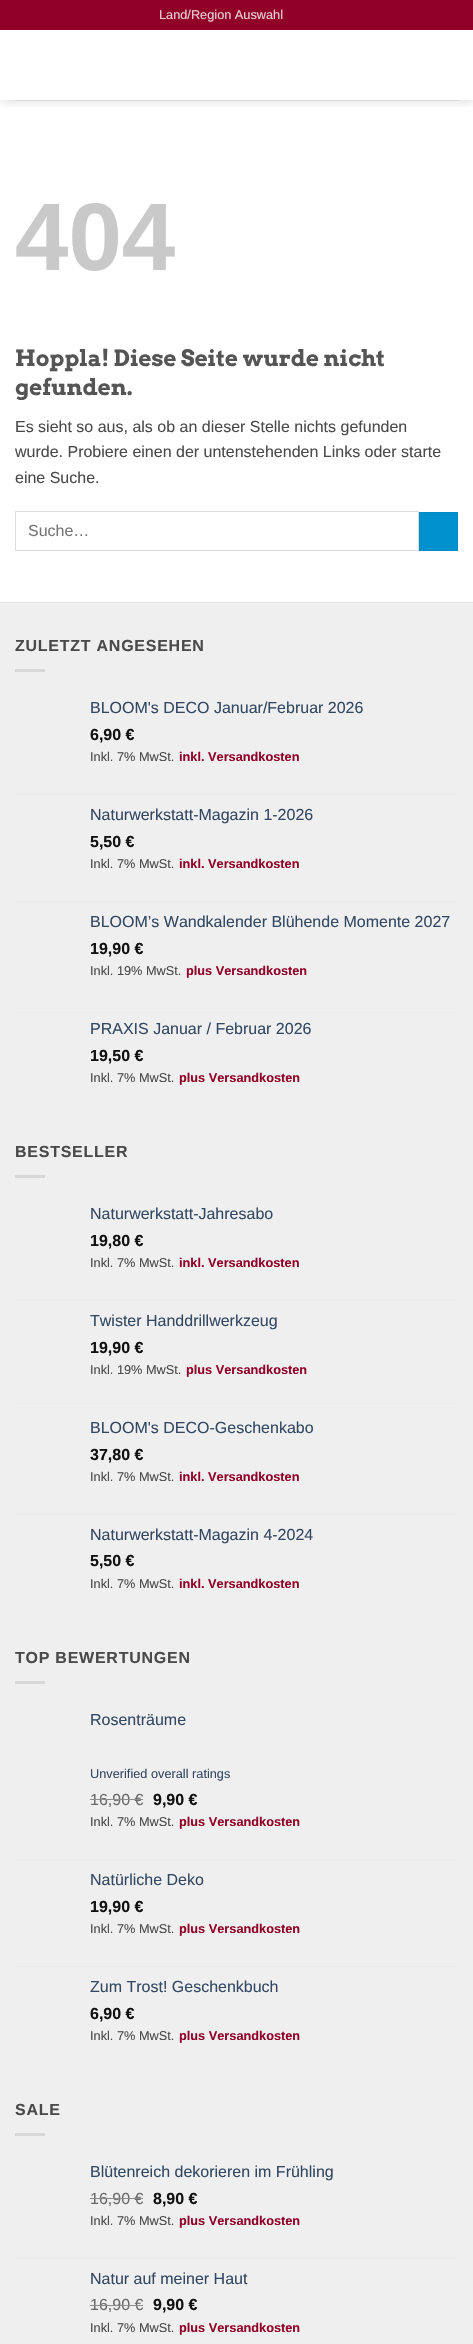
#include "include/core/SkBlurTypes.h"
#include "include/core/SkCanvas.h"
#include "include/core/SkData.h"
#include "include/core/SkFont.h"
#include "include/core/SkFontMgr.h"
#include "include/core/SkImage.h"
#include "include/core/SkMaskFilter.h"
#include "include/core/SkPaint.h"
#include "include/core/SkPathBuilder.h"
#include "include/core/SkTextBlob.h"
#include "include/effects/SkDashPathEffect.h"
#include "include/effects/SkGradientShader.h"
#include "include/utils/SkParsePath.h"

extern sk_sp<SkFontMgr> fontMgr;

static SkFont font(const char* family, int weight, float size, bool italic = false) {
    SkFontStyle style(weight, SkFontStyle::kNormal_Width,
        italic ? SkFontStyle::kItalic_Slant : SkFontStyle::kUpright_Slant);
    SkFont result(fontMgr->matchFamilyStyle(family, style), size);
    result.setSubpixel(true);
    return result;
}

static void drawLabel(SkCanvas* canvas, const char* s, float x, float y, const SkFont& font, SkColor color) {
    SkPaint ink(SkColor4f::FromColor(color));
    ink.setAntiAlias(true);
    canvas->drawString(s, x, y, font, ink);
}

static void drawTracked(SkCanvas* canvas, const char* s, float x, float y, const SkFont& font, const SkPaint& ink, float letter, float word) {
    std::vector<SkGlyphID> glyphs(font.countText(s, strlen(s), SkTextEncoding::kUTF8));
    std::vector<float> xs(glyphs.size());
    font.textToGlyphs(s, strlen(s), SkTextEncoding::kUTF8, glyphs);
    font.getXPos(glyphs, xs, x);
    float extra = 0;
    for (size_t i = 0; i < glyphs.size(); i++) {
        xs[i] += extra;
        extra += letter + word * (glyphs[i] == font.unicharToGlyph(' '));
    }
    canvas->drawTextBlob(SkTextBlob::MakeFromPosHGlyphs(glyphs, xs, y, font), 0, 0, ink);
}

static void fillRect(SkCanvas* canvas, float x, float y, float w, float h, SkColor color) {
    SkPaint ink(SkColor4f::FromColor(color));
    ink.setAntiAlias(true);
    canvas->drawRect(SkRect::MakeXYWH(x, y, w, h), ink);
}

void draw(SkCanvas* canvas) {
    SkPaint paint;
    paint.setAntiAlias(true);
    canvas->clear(0xFFFFFFFF);
    canvas->save();
    canvas->clipRect(SkRect::MakeXYWH(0, 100, 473, 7));
    paint.setColor(0x26000000);
    paint.setMaskFilter(SkMaskFilter::MakeBlur(kNormal_SkBlurStyle, 5));
    canvas->drawRect(SkRect::MakeXYWH(1, 1, 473, 100), paint);
    paint.setMaskFilter(nullptr);
    canvas->restore();
    fillRect(canvas, 0, 0, 473, 30, 0xFF900028);
    SkFont font1 = font("Liberation Sans", 400, 12.75f);
    drawLabel(canvas, "Land/Region Auswahl", 159, 19, font1, 0xFFE9CCD4);
    fillRect(canvas, 15, 100, 443, 1, 0xFFDADADA);
    SkFont font2 = font("Liberation Sans", 700, 96);
    drawLabel(canvas, "404", 15, 270, font2, 0xFFC9C9C9);
    SkFont font3 = font("Arvo", 700, 22.4f);
    drawLabel(canvas, "Hoppla! Diese Seite wurde nicht", 15, 366, font3, 0xFF555555);
    drawLabel(canvas, "gefunden.", 15, 395, font3, 0xFF555555);
    SkFont font4 = font("Liberation Sans", 400, 16);
    drawLabel(canvas, "Es sieht so aus, als ob an dieser Stelle nichts gefunden", 15, 432, font4, 0xFF4A4A4A);
    drawLabel(canvas, "wurde. Probiere einen der untenstehenden Links oder starte", 15, 457, font4, 0xFF4A4A4A);
    drawLabel(canvas, "eine Suche.", 15, 483, font4, 0xFF4A4A4A);
    paint.setStroke(true);
    paint.setStrokeWidth(1);
    paint.setColor(0xFFDDDDDD);
    canvas->drawRect(SkRect::MakeXYWH(15.5f, 511.5f, 403, 39), paint);
    drawLabel(canvas, "Suche…", 28, 536, font4, 0xFF757575);
    paint.setStroke(false);
    paint.setColor(0xFF0091CE);
    canvas->drawRect(SkRect::MakeXYWH(419.5f, 512.5f, 38, 38), paint);
    paint.setStroke(true);
    paint.setColor(0xFF008AC4);
    canvas->drawRect(SkRect::MakeXYWH(419.5f, 512.5f, 38, 38), paint);
    fillRect(canvas, 0, 603, 473, 1741, 0xFFEFEFEF);
    fillRect(canvas, 0, 602, 473, 1, 0xFFE3E3E3);
    SkFont font5 = font("Liberation Sans", 700, 16);
    paint.setStroke(false);
    paint.setColor(0xFF4A4A4A);
    drawTracked(canvas, "ZULETZT ANGESEHEN", 15, 651, font5, paint, 0.75f, 0);
    fillRect(canvas, 15, 669, 30, 3, 0xFFD7D7D7);
    drawLabel(canvas, "BLOOM's DECO Januar/Februar 2026", 90, 713, font4, 0xFF334862);
    drawLabel(canvas, "6,90 €", 90, 740, font5, 0xFF111111);
    drawLabel(canvas, "Inkl. 7% MwSt.", 90, 761, font1, 0xFF4A4A4A);
    SkFont font6 = font("Liberation Sans", 700, 12.75f);
    drawLabel(canvas, "inkl. Versandkosten", 179, 761, font6, 0xFF900028);
    fillRect(canvas, 15, 794, 443, 1, 0xFFECECEC);
    drawLabel(canvas, "Naturwerkstatt-Magazin 1-2026", 90, 820, font4, 0xFF334862);
    drawLabel(canvas, "5,50 €", 90, 847, font5, 0xFF111111);
    drawLabel(canvas, "Inkl. 7% MwSt.", 90, 868, font1, 0xFF4A4A4A);
    drawLabel(canvas, "inkl. Versandkosten", 179, 868, font6, 0xFF900028);
    fillRect(canvas, 15, 901, 443, 1, 0xFFECECEC);
    drawLabel(canvas, "BLOOM’s Wandkalender Blühende Momente 2027", 90, 927, font4, 0xFF334862);
    drawLabel(canvas, "19,90 €", 90, 954, font5, 0xFF111111);
    drawLabel(canvas, "Inkl. 19% MwSt.", 90, 975, font1, 0xFF4A4A4A);
    drawLabel(canvas, "plus Versandkosten", 186, 975, font6, 0xFF900028);
    fillRect(canvas, 15, 1008, 443, 1, 0xFFECECEC);
    drawLabel(canvas, "PRAXIS Januar / Februar 2026", 90, 1034, font4, 0xFF334862);
    drawLabel(canvas, "19,50 €", 90, 1061, font5, 0xFF111111);
    drawLabel(canvas, "Inkl. 7% MwSt.", 90, 1082, font1, 0xFF4A4A4A);
    drawLabel(canvas, "plus Versandkosten", 179, 1082, font6, 0xFF900028);
    drawTracked(canvas, "BESTSELLER", 15, 1157, font5, paint, 0.75f, 0);
    fillRect(canvas, 15, 1175, 30, 3, 0xFFD7D7D7);
    drawLabel(canvas, "Naturwerkstatt-Jahresabo", 90, 1219, font4, 0xFF334862);
    drawLabel(canvas, "19,80 €", 90, 1246, font5, 0xFF111111);
    drawLabel(canvas, "Inkl. 7% MwSt.", 90, 1267, font1, 0xFF4A4A4A);
    drawLabel(canvas, "inkl. Versandkosten", 179, 1267, font6, 0xFF900028);
    fillRect(canvas, 15, 1300, 443, 1, 0xFFECECEC);
    drawLabel(canvas, "Twister Handdrillwerkzeug", 90, 1326, font4, 0xFF334862);
    drawLabel(canvas, "19,90 €", 90, 1353, font5, 0xFF111111);
    drawLabel(canvas, "Inkl. 19% MwSt.", 90, 1374, font1, 0xFF4A4A4A);
    drawLabel(canvas, "plus Versandkosten", 186, 1374, font6, 0xFF900028);
    fillRect(canvas, 15, 1407, 443, 1, 0xFFECECEC);
    drawLabel(canvas, "BLOOM's DECO-Geschenkabo", 90, 1433, font4, 0xFF334862);
    drawLabel(canvas, "37,80 €", 90, 1460, font5, 0xFF111111);
    drawLabel(canvas, "Inkl. 7% MwSt.", 90, 1481, font1, 0xFF4A4A4A);
    drawLabel(canvas, "inkl. Versandkosten", 179, 1481, font6, 0xFF900028);
    fillRect(canvas, 15, 1514, 443, 1, 0xFFECECEC);
    drawLabel(canvas, "Naturwerkstatt-Magazin 4-2024", 90, 1540, font4, 0xFF334862);
    drawLabel(canvas, "5,50 €", 90, 1566, font5, 0xFF111111);
    drawLabel(canvas, "Inkl. 7% MwSt.", 90, 1588, font1, 0xFF4A4A4A);
    drawLabel(canvas, "inkl. Versandkosten", 179, 1588, font6, 0xFF900028);
    drawTracked(canvas, "TOP BEWERTUNGEN", 15, 1663, font5, paint, 0.75f, 0);
    fillRect(canvas, 15, 1681, 30, 3, 0xFFD7D7D7);
    drawLabel(canvas, "Rosenträume", 90, 1725, font4, 0xFF334862);
    drawLabel(canvas, "Unverified overall ratings", 90, 1778, font1, 0xFF334862);
    drawLabel(canvas, "16,90 €", 90, 1805, font4, 0xFF6A6A6A);
    fillRect(canvas, 90, 1799, 53, 1, 0xFF8C8C8C);
    drawLabel(canvas, "9,90 €", 153, 1805, font5, 0xFF111111);
    drawLabel(canvas, "Inkl. 7% MwSt.", 90, 1826, font1, 0xFF4A4A4A);
    drawLabel(canvas, "plus Versandkosten", 179, 1826, font6, 0xFF900028);
    fillRect(canvas, 15, 1859, 443, 1, 0xFFECECEC);
    drawLabel(canvas, "Natürliche Deko", 90, 1885, font4, 0xFF334862);
    drawLabel(canvas, "19,90 €", 90, 1912, font5, 0xFF111111);
    drawLabel(canvas, "Inkl. 7% MwSt.", 90, 1933, font1, 0xFF4A4A4A);
    drawLabel(canvas, "plus Versandkosten", 179, 1933, font6, 0xFF900028);
    fillRect(canvas, 15, 1966, 443, 1, 0xFFECECEC);
    drawLabel(canvas, "Zum Trost! Geschenkbuch", 90, 1992, font4, 0xFF334862);
    drawLabel(canvas, "6,90 €", 90, 2019, font5, 0xFF111111);
    drawLabel(canvas, "Inkl. 7% MwSt.", 90, 2040, font1, 0xFF4A4A4A);
    drawLabel(canvas, "plus Versandkosten", 179, 2040, font6, 0xFF900028);
    drawTracked(canvas, "SALE", 15, 2115, font5, paint, 0.75f, 0);
    fillRect(canvas, 15, 2133, 30, 3, 0xFFD7D7D7);
    drawLabel(canvas, "Blütenreich dekorieren im Frühling", 90, 2177, font4, 0xFF334862);
    drawLabel(canvas, "16,90 €", 90, 2204, font4, 0xFF6A6A6A);
    fillRect(canvas, 90, 2198, 53, 1, 0xFF8C8C8C);
    drawLabel(canvas, "8,90 €", 153, 2204, font5, 0xFF111111);
    drawLabel(canvas, "Inkl. 7% MwSt.", 90, 2225, font1, 0xFF4A4A4A);
    drawLabel(canvas, "plus Versandkosten", 179, 2225, font6, 0xFF900028);
    fillRect(canvas, 15, 2258, 443, 1, 0xFFECECEC);
    drawLabel(canvas, "Natur auf meiner Haut", 90, 2284, font4, 0xFF334862);
    drawLabel(canvas, "16,90 €", 90, 2310, font4, 0xFF6A6A6A);
    fillRect(canvas, 90, 2305, 53, 1, 0xFF8C8C8C);
    drawLabel(canvas, "9,90 €", 153, 2310, font5, 0xFF111111);
    drawLabel(canvas, "Inkl. 7% MwSt.", 90, 2332, font1, 0xFF4A4A4A);
    drawLabel(canvas, "plus Versandkosten", 179, 2332, font6, 0xFF900028);
}
